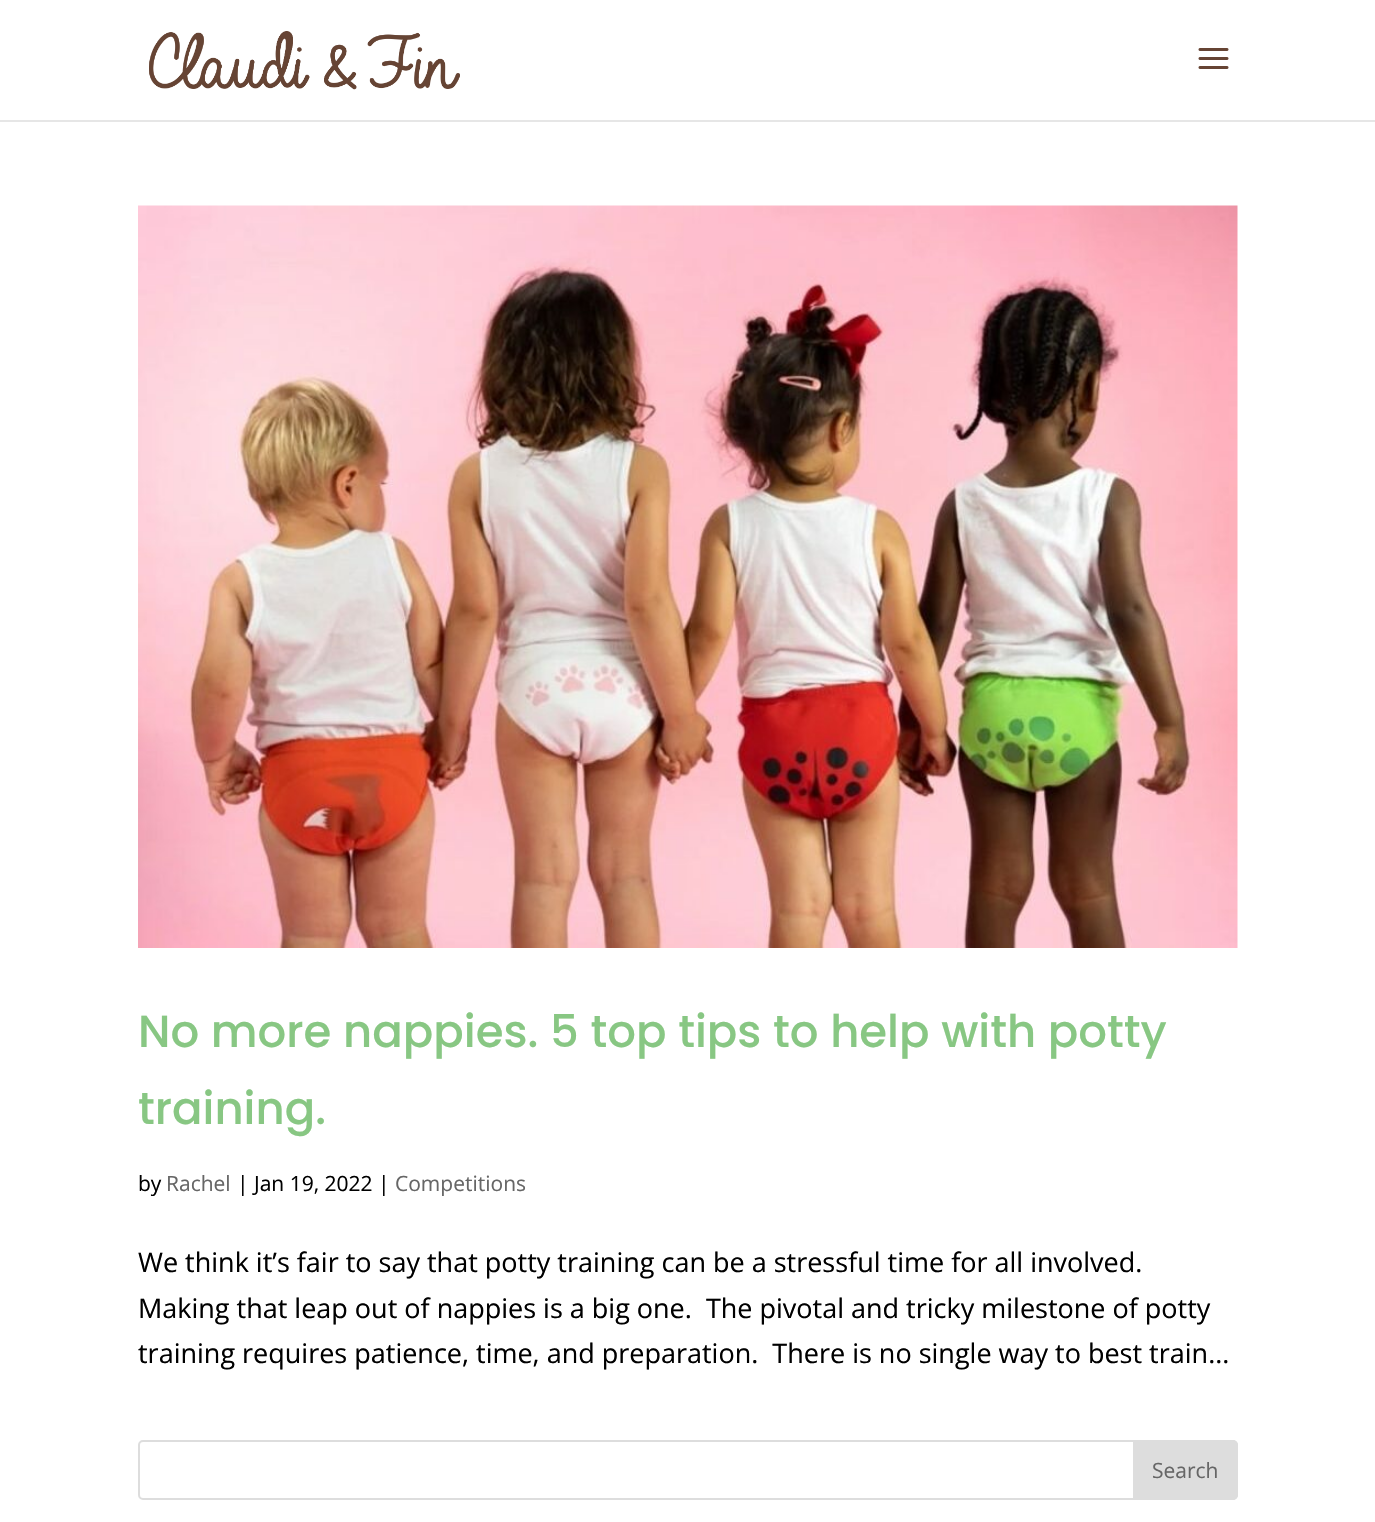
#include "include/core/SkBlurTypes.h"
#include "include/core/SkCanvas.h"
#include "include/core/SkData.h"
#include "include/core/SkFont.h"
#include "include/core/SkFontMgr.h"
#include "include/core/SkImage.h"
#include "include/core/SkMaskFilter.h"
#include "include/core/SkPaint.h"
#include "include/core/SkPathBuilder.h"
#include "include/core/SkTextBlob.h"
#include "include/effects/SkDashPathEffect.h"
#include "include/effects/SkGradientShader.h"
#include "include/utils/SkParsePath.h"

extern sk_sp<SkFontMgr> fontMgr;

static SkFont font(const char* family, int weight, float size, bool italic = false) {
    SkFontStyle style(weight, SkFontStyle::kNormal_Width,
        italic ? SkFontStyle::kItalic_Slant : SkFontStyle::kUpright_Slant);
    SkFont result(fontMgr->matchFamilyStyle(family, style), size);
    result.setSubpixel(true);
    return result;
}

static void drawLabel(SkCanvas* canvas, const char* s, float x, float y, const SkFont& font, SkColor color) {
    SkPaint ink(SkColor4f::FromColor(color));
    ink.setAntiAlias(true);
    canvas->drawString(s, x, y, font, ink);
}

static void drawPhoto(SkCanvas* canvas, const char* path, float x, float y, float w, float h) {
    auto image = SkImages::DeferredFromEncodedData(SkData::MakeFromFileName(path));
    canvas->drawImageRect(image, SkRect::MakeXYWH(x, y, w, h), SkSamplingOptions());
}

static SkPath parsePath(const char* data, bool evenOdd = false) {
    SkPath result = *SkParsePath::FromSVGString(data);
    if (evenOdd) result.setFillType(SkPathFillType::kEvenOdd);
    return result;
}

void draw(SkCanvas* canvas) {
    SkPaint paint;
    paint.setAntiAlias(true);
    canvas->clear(0xFFFFFFFF);
    paint.setColor(0xFFE6E6E6);
    canvas->drawPath(parsePath("M0 120V122H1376V2V120Z"), paint);
    drawPhoto(canvas, "assets/img1.png", 149, 31, 311, 59);
    drawPhoto(canvas, "assets/img2.png", 1198, 48, 31, 21);
    drawPhoto(canvas, "assets/img3.png", 138, 205, 1100, 743);
    SkFont font1 = font("Poppins", 500, 45);
    drawLabel(canvas, "No more nappies. 5 top tips to help with potty", 138, 1047, font1, 0xFF88C783);
    drawLabel(canvas, "training.", 138, 1124, font1, 0xFF88C783);
    SkFont font2 = font("Open Sans", 400, 21);
    drawLabel(canvas, "by", 138, 1191, font2, 0xFF000000);
    drawLabel(canvas, "Rachel", 166, 1191, font2, 0xFF666666);
    drawLabel(canvas, "| Jan 19, 2022 |", 237, 1191, font2, 0xFF000000);
    drawLabel(canvas, "Competitions", 395, 1191, font2, 0xFF666666);
    SkFont font3 = font("Open Sans", 400, 27);
    drawLabel(canvas, "We think it’s fair to say that potty training can be a stressful time for all involved.", 138, 1272, font3, 0xFF000000);
    drawLabel(canvas, "Making that leap out of nappies is a big one.  The pivotal and tricky milestone of potty", 138, 1318, font3, 0xFF000000);
    drawLabel(canvas, "training requires patience, time, and preparation.  There is no single way to best train...", 138, 1363, font3, 0xFF000000);
    paint.setStroke(true);
    paint.setStrokeWidth(2);
    paint.setColor(0xFFDDDDDD);
    canvas->drawRoundRect(SkRect::MakeXYWH(139, 1441, 1098, 58), 4, 4, paint);
    paint.setStroke(false);
    canvas->drawPath(parsePath("M1134 1441H1233C1235 1441 1237 1443 1237 1445V1495C1237 1497 1235 1499 1233 1499H1134Z"), paint);
    paint.setStroke(true);
    canvas->drawPath(parsePath("M1134 1441H1233C1235 1441 1237 1443 1237 1445V1495C1237 1497 1235 1499 1233 1499H1134Z"), paint);
    drawLabel(canvas, "Search", 1152, 1478, font2, 0xFF666666);
}
